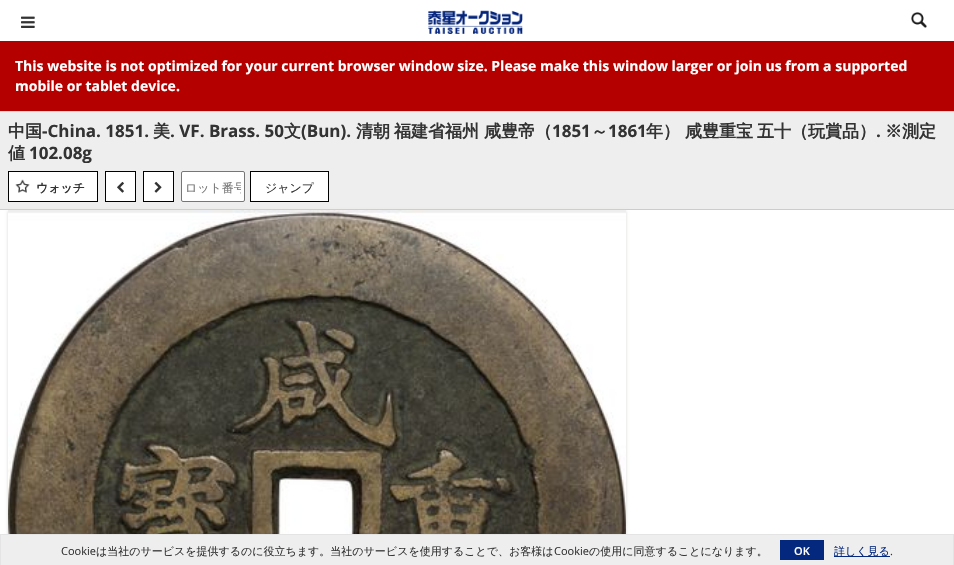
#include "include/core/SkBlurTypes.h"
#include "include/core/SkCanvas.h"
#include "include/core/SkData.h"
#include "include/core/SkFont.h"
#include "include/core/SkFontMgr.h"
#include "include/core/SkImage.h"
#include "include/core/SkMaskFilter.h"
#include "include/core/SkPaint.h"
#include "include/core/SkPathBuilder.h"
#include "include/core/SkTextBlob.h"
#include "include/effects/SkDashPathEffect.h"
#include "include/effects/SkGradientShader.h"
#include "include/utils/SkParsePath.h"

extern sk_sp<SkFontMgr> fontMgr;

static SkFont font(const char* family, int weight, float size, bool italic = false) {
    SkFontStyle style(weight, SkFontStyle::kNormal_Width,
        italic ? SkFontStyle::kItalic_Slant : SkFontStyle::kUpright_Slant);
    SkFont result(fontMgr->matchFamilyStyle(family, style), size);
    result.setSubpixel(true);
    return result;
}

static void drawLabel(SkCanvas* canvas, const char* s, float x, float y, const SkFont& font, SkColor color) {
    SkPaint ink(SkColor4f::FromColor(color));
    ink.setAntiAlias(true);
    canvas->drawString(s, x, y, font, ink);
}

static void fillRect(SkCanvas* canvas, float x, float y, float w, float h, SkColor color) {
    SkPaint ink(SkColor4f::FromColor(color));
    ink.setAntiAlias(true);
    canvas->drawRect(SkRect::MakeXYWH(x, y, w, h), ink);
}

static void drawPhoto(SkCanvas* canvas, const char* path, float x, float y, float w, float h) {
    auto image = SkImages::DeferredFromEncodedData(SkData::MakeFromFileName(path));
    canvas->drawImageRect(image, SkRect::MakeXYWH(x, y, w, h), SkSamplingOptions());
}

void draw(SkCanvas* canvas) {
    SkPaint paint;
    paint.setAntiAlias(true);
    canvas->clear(0xFFFFFFFF);
    drawPhoto(canvas, "assets/img1.png", 21, 16, 14, 12);
    drawPhoto(canvas, "assets/img2.png", 428, 10, 95, 24);
    drawPhoto(canvas, "assets/img3.png", 911, 12, 16, 16);
    fillRect(canvas, 0, 41, 954, 70, 0xFFB50000);
    fillRect(canvas, 0, 111, 954, 1, 0xFFEBCCD1);
    SkFont font1 = font("Open Sans", 700, 14);
    drawLabel(canvas, "This website is not optimized for your current browser window size. Please make this window larger or join us from a supported", 15, 71, font1, 0xFFFFFFFF);
    drawLabel(canvas, "mobile or tablet device.", 15, 91, font1, 0xFFFFFFFF);
    fillRect(canvas, 0, 112, 954, 97, 0xFFEEEEEE);
    fillRect(canvas, 0, 209, 954, 1, 0xFFCCCCCC);
    SkFont font2 = font("WenQuanYi Zen Hei", 700, 17);
    drawLabel(canvas, "中国", 8, 137, font2, 0xFF333333);
    SkFont font3 = font("Open Sans", 700, 17);
    drawLabel(canvas, "-China. 1851.", 42, 137, font3, 0xFF333333);
    drawLabel(canvas, "美", 153, 137, font2, 0xFF333333);
    drawLabel(canvas, ". VF. Brass. 50", 170, 137, font3, 0xFF333333);
    drawLabel(canvas, "文", 284, 137, font2, 0xFF333333);
    drawLabel(canvas, "(Bun).", 301, 137, font3, 0xFF333333);
    drawLabel(canvas, "清朝", 356, 137, font2, 0xFF333333);
    drawLabel(canvas, "福建省福州", 394, 137, font2, 0xFF333333);
    drawLabel(canvas, "咸豊帝（", 484, 137, font2, 0xFF333333);
    drawLabel(canvas, "1851", 552, 137, font3, 0xFF333333);
    drawLabel(canvas, "～", 591, 137, font2, 0xFF333333);
    drawLabel(canvas, "1861", 608, 137, font3, 0xFF333333);
    drawLabel(canvas, "年）", 646, 137, font2, 0xFF333333);
    drawLabel(canvas, "咸豊重宝", 685, 137, font2, 0xFF333333);
    drawLabel(canvas, "五十（玩賞品）", 757, 137, font2, 0xFF333333);
    drawLabel(canvas, "※測定", 885, 137, font2, 0xFF333333);
    drawLabel(canvas, ".", 876, 137, font3, 0xFF333333);
    drawLabel(canvas, "値", 8, 159, font2, 0xFF333333);
    drawLabel(canvas, "102.08g", 29, 159, font3, 0xFF333333);
    paint.setColor(0xFFFFFFFF);
    canvas->drawRect(SkRect::MakeXYWH(8.5f, 171.5f, 89, 30), paint);
    paint.setStroke(true);
    paint.setStrokeWidth(1);
    paint.setColor(0xFF000000);
    canvas->drawRect(SkRect::MakeXYWH(8.5f, 171.5f, 89, 30), paint);
    drawPhoto(canvas, "assets/img4.png", 15, 179, 15, 14);
    SkFont font4 = font("WenQuanYi Zen Hei", 700, 12);
    drawLabel(canvas, "ウォッチ", 36, 192, font4, 0xFF333333);
    paint.setStroke(false);
    paint.setColor(0xFFFFFFFF);
    canvas->drawRect(SkRect::MakeXYWH(105.5f, 171.5f, 30, 30), paint);
    paint.setStroke(true);
    paint.setColor(0xFF000000);
    canvas->drawRect(SkRect::MakeXYWH(105.5f, 171.5f, 30, 30), paint);
    drawPhoto(canvas, "assets/img5.png", 117, 181, 7, 12);
    paint.setStroke(false);
    paint.setColor(0xFFFFFFFF);
    canvas->drawRect(SkRect::MakeXYWH(143.5f, 171.5f, 30, 30), paint);
    paint.setStroke(true);
    paint.setColor(0xFF000000);
    canvas->drawRect(SkRect::MakeXYWH(143.5f, 171.5f, 30, 30), paint);
    drawPhoto(canvas, "assets/img6.png", 154, 181, 8, 12);
    paint.setStroke(false);
    paint.setColor(0xFFFFFFFF);
    canvas->drawRoundRect(SkRect::MakeXYWH(181.5f, 171.5f, 63, 30), 1.5f, 1.5f, paint);
    paint.setStroke(true);
    paint.setColor(0xFF767676);
    canvas->drawRoundRect(SkRect::MakeXYWH(181.5f, 171.5f, 63, 30), 1.5f, 1.5f, paint);
    canvas->save();
    canvas->clipRect(SkRect::MakeXYWH(185, 179, 56, 18));
    SkFont font5 = font("WenQuanYi Zen Hei", 500, 12);
    drawLabel(canvas, "ロット番号", 185, 192, font5, 0xFF757575);
    canvas->restore();
    paint.setStroke(false);
    paint.setColor(0xFFFFFFFF);
    canvas->drawRect(SkRect::MakeXYWH(250.5f, 171.5f, 78, 30), paint);
    paint.setStroke(true);
    paint.setColor(0xFF000000);
    canvas->drawRect(SkRect::MakeXYWH(250.5f, 171.5f, 78, 30), paint);
    drawLabel(canvas, "ジャンプ", 265, 192, font5, 0xFF333333);
    paint.setStroke(false);
    paint.setColor(0xFFDAD9D7);
    paint.setMaskFilter(SkMaskFilter::MakeBlur(kNormal_SkBlurStyle, 1.5f));
    canvas->drawRect(SkRect::MakeXYWH(8, 211, 618, 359), paint);
    paint.setMaskFilter(nullptr);
    drawPhoto(canvas, "assets/img7.png", 8, 210, 618, 324);
    fillRect(canvas, 1, 535, 952, 30, 0xFFEEEEEE);
    fillRect(canvas, 0, 534, 954, 1, 0xFFE4E4E4);
    fillRect(canvas, 953, 534, 1, 31, 0xFFE4E4E4);
    fillRect(canvas, 0, 534, 1, 31, 0xFFE4E4E4);
    SkFont font6 = font("Open Sans", 400, 11);
    drawLabel(canvas, "Cookie", 61, 555, font6, 0xFF333333);
    SkFont font7 = font("WenQuanYi Zen Hei", 500, 11);
    drawLabel(canvas, "は当社のサービスを提供するのに役立ちます。当社のサービスを使用することで、お客様は", 96, 555, font7, 0xFF333333);
    drawLabel(canvas, "Cookie", 554, 555, font6, 0xFF333333);
    drawLabel(canvas, "の使用に同意することになります。", 589, 555, font7, 0xFF333333);
    fillRect(canvas, 780, 540, 44, 20, 0xFF04287E);
    SkFont font8 = font("Open Sans", 600, 11);
    drawLabel(canvas, "OK", 794, 555, font8, 0xFFFFFFFF);
    fillRect(canvas, 834, 556, 56, 1, 0xFF04287E);
    drawLabel(canvas, "詳しく見る", 834, 555, font7, 0xFF04287E);
    drawLabel(canvas, ".", 890, 555, font6, 0xFF333333);
}
